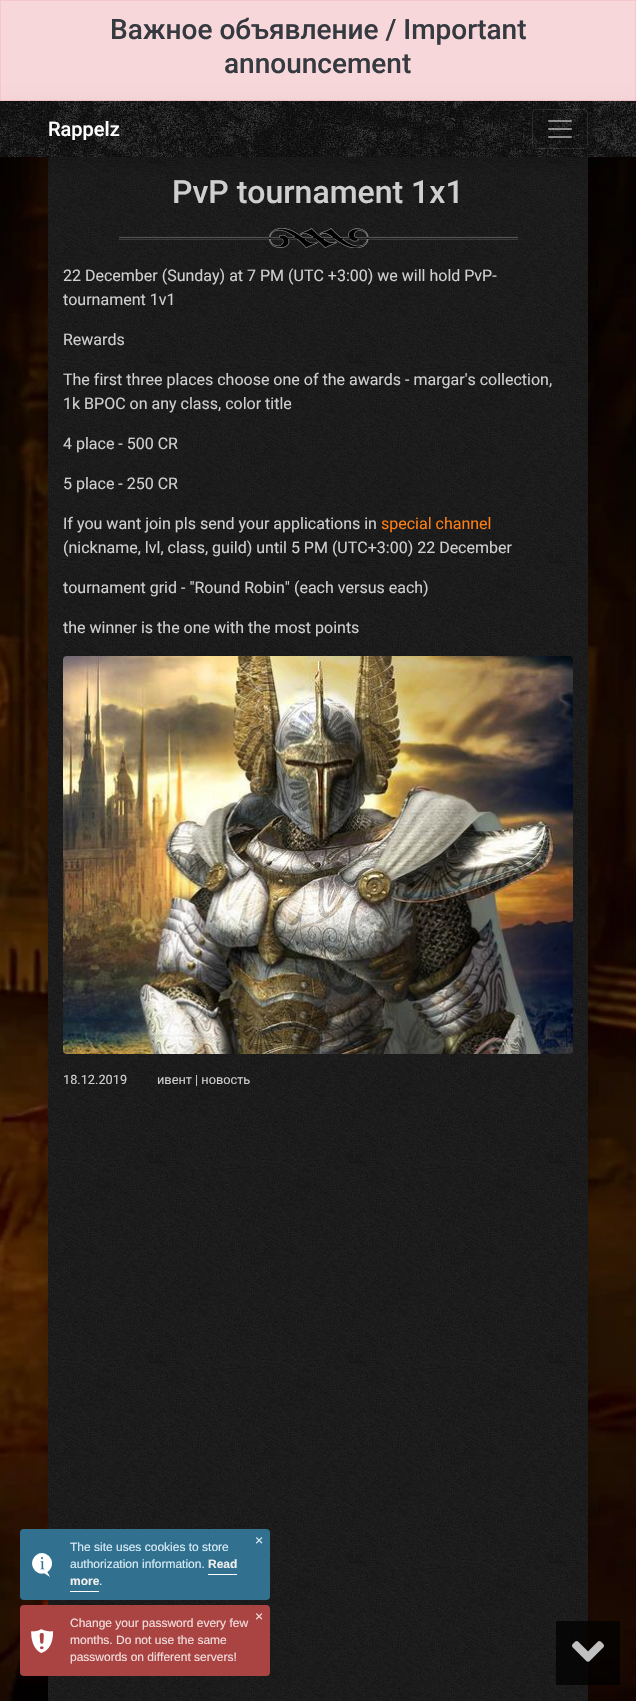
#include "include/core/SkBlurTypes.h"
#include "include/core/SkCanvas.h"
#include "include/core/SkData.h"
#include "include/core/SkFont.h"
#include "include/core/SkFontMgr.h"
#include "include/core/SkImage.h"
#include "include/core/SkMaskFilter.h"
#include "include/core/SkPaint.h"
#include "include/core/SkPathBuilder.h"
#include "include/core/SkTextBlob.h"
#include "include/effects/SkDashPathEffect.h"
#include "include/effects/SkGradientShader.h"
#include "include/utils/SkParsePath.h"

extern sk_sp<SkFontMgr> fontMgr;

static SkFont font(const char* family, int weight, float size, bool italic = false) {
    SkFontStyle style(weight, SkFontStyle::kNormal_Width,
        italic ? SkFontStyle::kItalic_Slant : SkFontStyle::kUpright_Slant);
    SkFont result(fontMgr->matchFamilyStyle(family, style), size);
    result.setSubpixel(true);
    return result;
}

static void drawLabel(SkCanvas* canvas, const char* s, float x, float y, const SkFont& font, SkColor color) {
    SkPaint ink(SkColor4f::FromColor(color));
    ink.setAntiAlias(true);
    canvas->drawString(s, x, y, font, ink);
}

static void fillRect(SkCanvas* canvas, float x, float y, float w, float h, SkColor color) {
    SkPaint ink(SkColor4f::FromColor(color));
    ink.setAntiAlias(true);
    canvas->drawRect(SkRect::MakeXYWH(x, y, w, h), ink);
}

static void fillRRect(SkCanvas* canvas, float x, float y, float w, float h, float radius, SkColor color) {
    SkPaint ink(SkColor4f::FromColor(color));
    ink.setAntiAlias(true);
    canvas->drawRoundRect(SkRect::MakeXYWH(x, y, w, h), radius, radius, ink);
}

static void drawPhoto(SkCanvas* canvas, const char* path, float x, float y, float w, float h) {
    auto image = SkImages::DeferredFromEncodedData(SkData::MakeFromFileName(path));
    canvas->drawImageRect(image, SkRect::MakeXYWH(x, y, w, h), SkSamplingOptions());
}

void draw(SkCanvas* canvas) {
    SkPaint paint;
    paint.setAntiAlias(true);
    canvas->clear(0xFFFFFFFF);
    paint.setColor(0xFFF8D7DA);
    canvas->drawRect(SkRect::MakeXYWH(0.5f, 0.5f, 635, 100), paint);
    paint.setStroke(true);
    paint.setStrokeWidth(1);
    paint.setColor(0xFFF5C6CB);
    canvas->drawRect(SkRect::MakeXYWH(0.5f, 0.5f, 635, 100), paint);
    SkFont font1 = font("Roboto", 500, 28);
    drawLabel(canvas, "Важное объявление / Important", 110, 39, font1, 0xFF343A40);
    drawLabel(canvas, "announcement", 224, 73, font1, 0xFF343A40);
    drawPhoto(canvas, "assets/img3.png", 0, 157, 636, 1544);
    paint.setStroke(false);
    paint.setColor(0x26000000);
    paint.setMaskFilter(SkMaskFilter::MakeBlur(kNormal_SkBlurStyle, 8));
    canvas->drawRect(SkRect::MakeXYWH(48, 165, 540, 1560), paint);
    paint.setMaskFilter(nullptr);
    drawPhoto(canvas, "assets/img4.png", 48, 157, 540, 1544);
    paint.setMaskFilter(SkMaskFilter::MakeBlur(kNormal_SkBlurStyle, 8));
    canvas->drawRect(SkRect::MakeXYWH(0, 109, 636, 56), paint);
    paint.setMaskFilter(nullptr);
    drawPhoto(canvas, "assets/img1.png", 0, 101, 636, 56);
    SkFont font2 = font("Roboto", 500, 20);
    drawLabel(canvas, "Rappelz", 48, 136, font2, 0xFFFFFFFF);
    paint.setStroke(true);
    paint.setColor(0x1AFFFFFF);
    canvas->drawRoundRect(SkRect::MakeXYWH(532.5f, 109.5f, 55, 39), 3.5f, 3.5f, paint);
    drawPhoto(canvas, "assets/img2.png", 548, 120, 24, 18);
    SkFont font3 = font("Roboto", 500, 32);
    drawLabel(canvas, "PvP tournament 1x1", 172, 203, font3, 0xFFCFCFCF);
    drawPhoto(canvas, "assets/img5.png", 119, 228, 399, 20);
    SkFont font4 = font("Roboto", 400, 16);
    drawLabel(canvas, "22 December (Sunday) at 7 PM (UTC +3:00) we will hold PvP-", 63, 281, font4, 0xFFCFCFCF);
    drawLabel(canvas, "tournament 1v1", 63, 305, font4, 0xFFCFCFCF);
    drawLabel(canvas, "Rewards", 63, 345, font4, 0xFFCFCFCF);
    drawLabel(canvas, "The first three places choose one of the awards - margar's collection,", 63, 385, font4, 0xFFCFCFCF);
    drawLabel(canvas, "1k BPOC on any class, color title", 63, 409, font4, 0xFFCFCFCF);
    drawLabel(canvas, "4 place - 500 CR", 63, 449, font4, 0xFFCFCFCF);
    drawLabel(canvas, "5 place - 250 CR", 63, 489, font4, 0xFFCFCFCF);
    drawLabel(canvas, "If you want join pls send your applications in", 63, 529, font4, 0xFFCFCFCF);
    drawLabel(canvas, "special channel", 381, 529, font4, 0xFFFD7E14);
    drawLabel(canvas, "(nickname, lvl, class, guild) until 5 PM (UTC+3:00) 22 December", 63, 553, font4, 0xFFCFCFCF);
    drawLabel(canvas, "tournament grid - \"Round Robin\" (each versus each)", 63, 593, font4, 0xFFCFCFCF);
    drawLabel(canvas, "the winner is the one with the most points", 63, 633, font4, 0xFFCFCFCF);
    drawPhoto(canvas, "assets/img6.png", 63, 656, 510, 398);
    SkFont font5 = font("Roboto", 400, 12.75f);
    drawLabel(canvas, "18.12.2019", 63, 1084, font5, 0xFFCFCFCF);
    drawLabel(canvas, "ивент | новость", 157, 1084, font5, 0xFFCFCFCF);
    fillRRect(canvas, 20, 1529, 250, 71, 4, 0xFF31708F);
    drawPhoto(canvas, "assets/img7.png", 32, 1553, 20, 24);
    SkFont font6 = font("Liberation Sans", 400, 14);
    drawLabel(canvas, "×", 255, 1545, font6, 0xFFD9EDF7);
    SkFont font7 = font("Liberation Sans", 400, 12);
    drawLabel(canvas, "The site uses cookies to store", 70, 1551, font7, 0xFFD9EDF7);
    drawLabel(canvas, "authorization information.", 70, 1568, font7, 0xFFD9EDF7);
    SkFont font8 = font("Liberation Sans", 700, 12);
    drawLabel(canvas, "Read", 208, 1568, font8, 0xFFEEEEEE);
    fillRect(canvas, 208, 1574, 29, 1, 0xFFFFFFFF);
    drawLabel(canvas, "more", 70, 1585, font8, 0xFFEEEEEE);
    fillRect(canvas, 70, 1591, 29, 1, 0xFFFFFFFF);
    drawLabel(canvas, ".", 99, 1585, font7, 0xFFD9EDF7);
    fillRRect(canvas, 20, 1605, 250, 71, 4, 0xFFA94442);
    drawPhoto(canvas, "assets/img8.png", 31, 1629, 22, 24);
    drawLabel(canvas, "×", 255, 1621, font6, 0xFFF2DEDE);
    drawLabel(canvas, "Change your password every few", 70, 1627, font7, 0xFFF2DEDE);
    drawLabel(canvas, "months. Do not use the same", 70, 1644, font7, 0xFFF2DEDE);
    drawLabel(canvas, "passwords on different servers!", 70, 1661, font7, 0xFFF2DEDE);
    fillRect(canvas, 556, 1621, 64, 64, 0xBF000000);
    drawPhoto(canvas, "assets/img9.png", 572, 1641, 32, 21);
}
